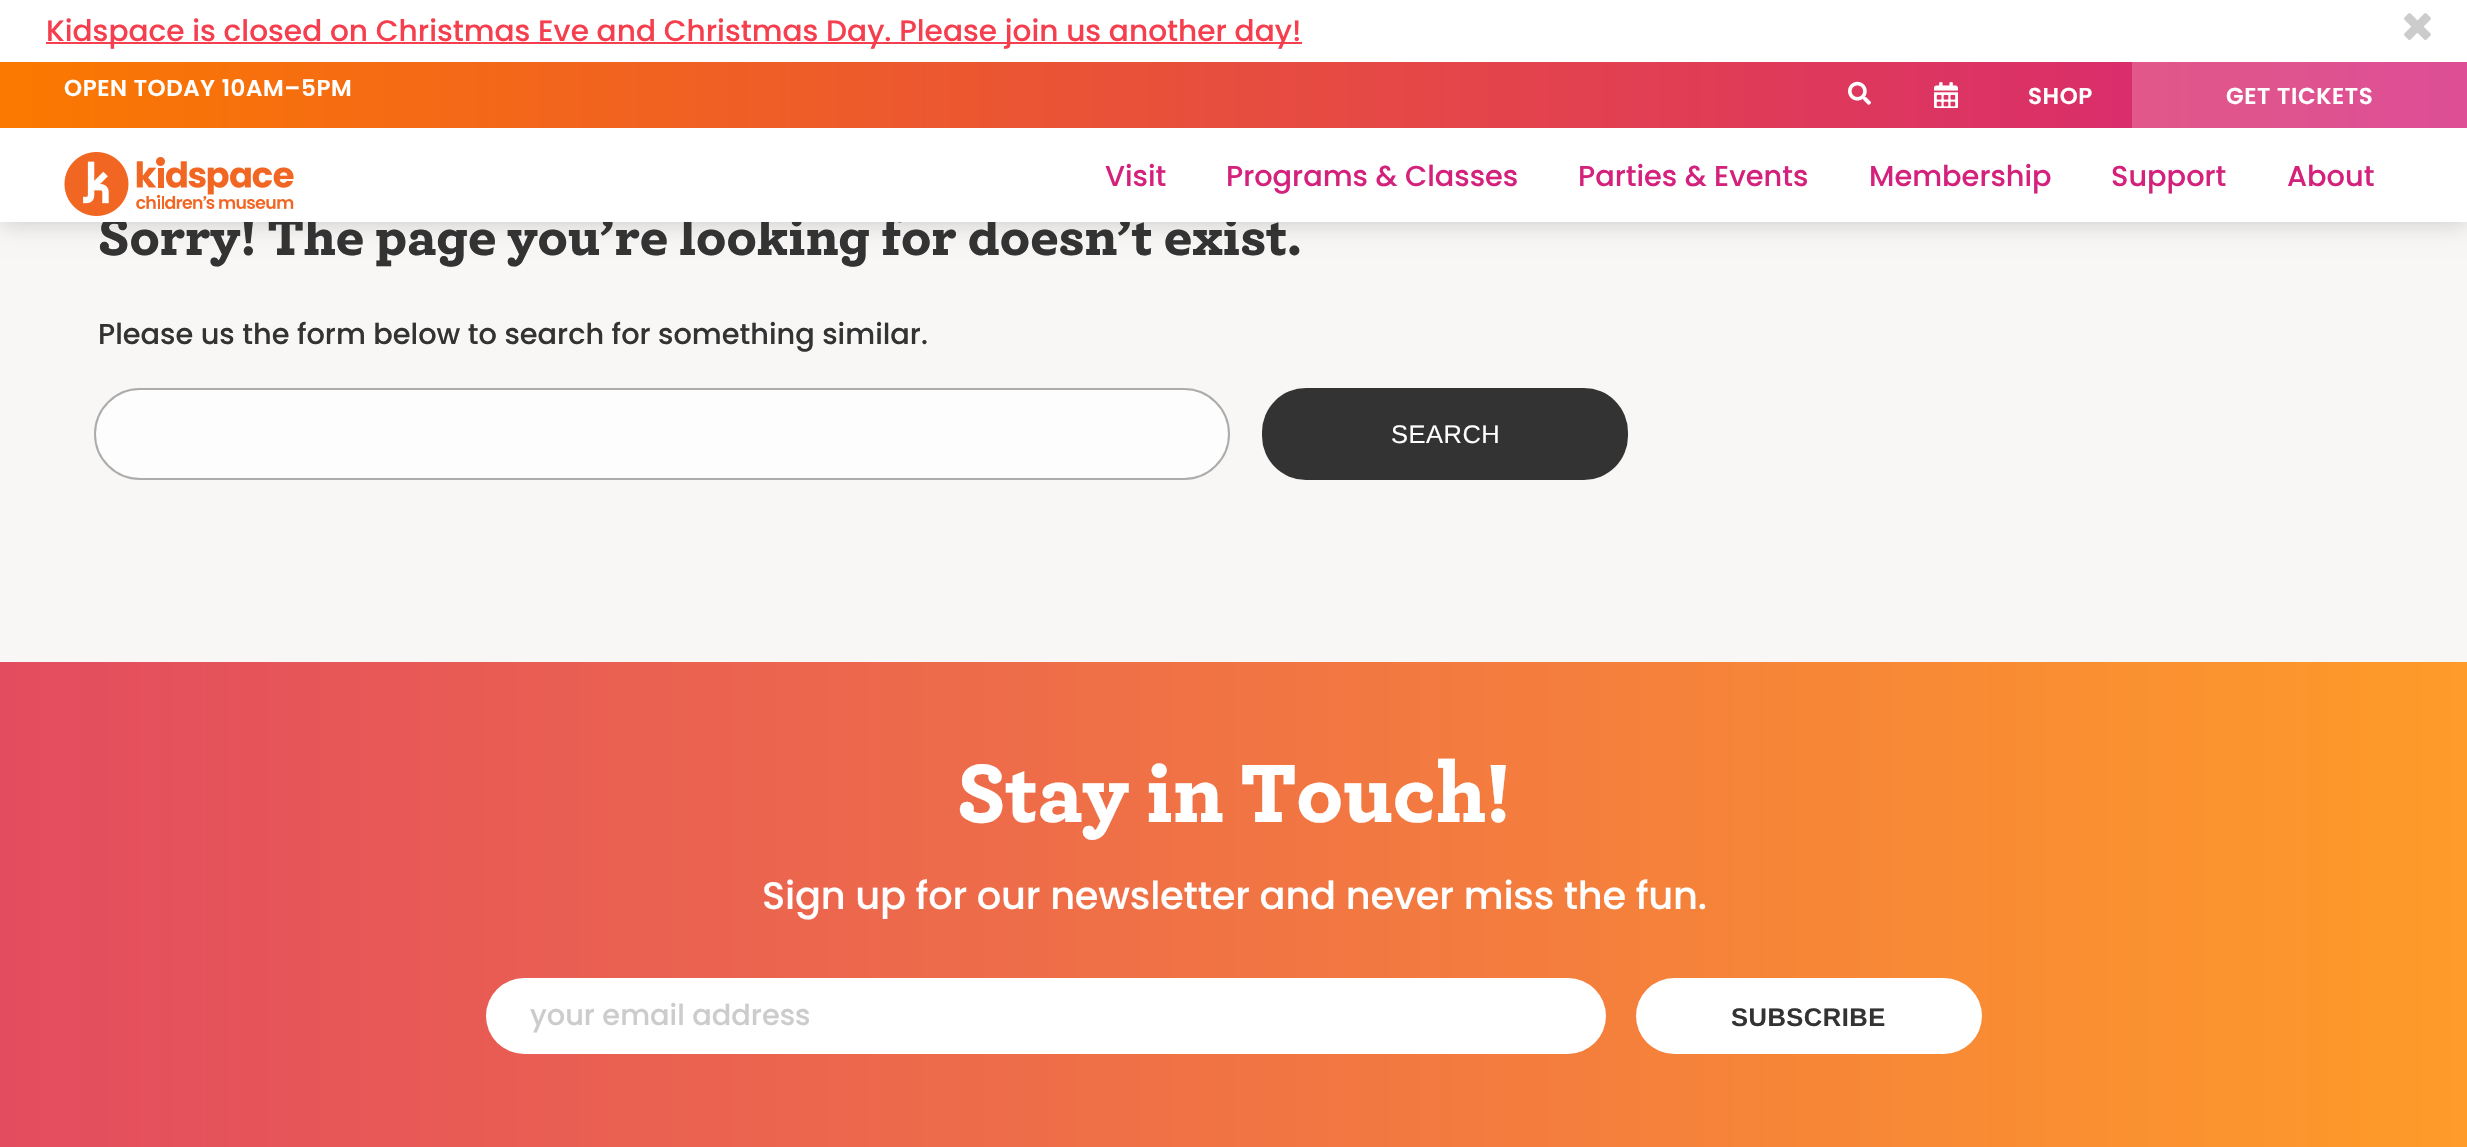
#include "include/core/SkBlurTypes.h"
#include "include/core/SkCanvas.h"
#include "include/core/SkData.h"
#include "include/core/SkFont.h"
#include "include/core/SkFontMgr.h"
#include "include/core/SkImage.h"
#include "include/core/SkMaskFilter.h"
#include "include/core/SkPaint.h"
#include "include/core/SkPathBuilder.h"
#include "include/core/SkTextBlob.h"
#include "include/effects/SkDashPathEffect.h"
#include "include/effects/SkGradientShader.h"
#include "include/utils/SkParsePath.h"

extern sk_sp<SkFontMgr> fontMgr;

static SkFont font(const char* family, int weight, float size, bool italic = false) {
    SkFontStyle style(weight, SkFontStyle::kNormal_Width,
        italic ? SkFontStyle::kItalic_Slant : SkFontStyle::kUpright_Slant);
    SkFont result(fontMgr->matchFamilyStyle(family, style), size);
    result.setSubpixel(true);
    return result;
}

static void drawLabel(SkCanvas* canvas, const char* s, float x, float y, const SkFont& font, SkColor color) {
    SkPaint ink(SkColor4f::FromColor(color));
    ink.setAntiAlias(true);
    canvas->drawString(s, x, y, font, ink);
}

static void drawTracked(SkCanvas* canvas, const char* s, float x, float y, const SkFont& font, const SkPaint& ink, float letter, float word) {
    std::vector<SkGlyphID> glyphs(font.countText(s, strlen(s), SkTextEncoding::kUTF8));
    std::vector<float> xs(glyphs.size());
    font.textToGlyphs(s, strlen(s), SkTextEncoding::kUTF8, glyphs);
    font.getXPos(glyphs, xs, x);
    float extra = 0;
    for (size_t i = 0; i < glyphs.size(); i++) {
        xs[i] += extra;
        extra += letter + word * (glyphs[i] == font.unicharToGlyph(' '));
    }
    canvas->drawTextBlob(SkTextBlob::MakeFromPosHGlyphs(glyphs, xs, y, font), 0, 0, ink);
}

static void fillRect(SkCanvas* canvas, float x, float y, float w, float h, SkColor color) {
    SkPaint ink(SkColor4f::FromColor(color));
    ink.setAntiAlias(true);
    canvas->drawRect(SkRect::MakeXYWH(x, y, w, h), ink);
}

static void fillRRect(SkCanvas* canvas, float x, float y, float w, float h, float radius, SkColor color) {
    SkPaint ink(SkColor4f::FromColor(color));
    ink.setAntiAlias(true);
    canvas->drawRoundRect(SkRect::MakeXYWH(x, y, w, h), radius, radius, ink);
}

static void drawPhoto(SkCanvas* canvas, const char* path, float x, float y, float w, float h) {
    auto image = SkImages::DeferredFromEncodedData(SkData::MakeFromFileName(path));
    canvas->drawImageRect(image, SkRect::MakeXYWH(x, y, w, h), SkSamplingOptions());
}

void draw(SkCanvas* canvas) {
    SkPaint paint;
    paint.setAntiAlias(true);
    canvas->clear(0xFFF8F7F5);
    paint.setColor(0x33000000);
    paint.setMaskFilter(SkMaskFilter::MakeBlur(kNormal_SkBlurStyle, 12));
    canvas->drawRect(SkRect::MakeXYWH(0, 0, 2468, 222), paint);
    paint.setMaskFilter(nullptr);
    SkFont font1 = font("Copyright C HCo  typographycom", 400, 56);
    drawLabel(canvas, "Sorry! The page you’re looking for doesn’t exist.", 98, 255, font1, 0xFF333333);
    fillRect(canvas, 0, 0, 2467, 222, 0xFFFFFFFF);
    fillRect(canvas, 46, 42, 1256, 2, 0xFFF53F4E);
    SkFont font2 = font("Poppins", 500, 29.6f);
    drawLabel(canvas, "Kidspace is closed on Christmas Eve and Christmas Day. Please join us another day!", 46, 41, font2, 0xFFF53F4E);
    drawPhoto(canvas, "assets/img1.png", 2404, 13, 27, 27);
    {
        const SkColor colors[] = {0xFFFB7900, 0xFFD4227C};
        const float stops[] = {0, 1};
        const SkPoint ends[] = {{0, 95}, {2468, 95}};
        paint.setShader(SkGradientShader::MakeLinear(ends, colors, stops, 2, SkTileMode::kClamp));
        paint.setAlpha(255);
    }
    canvas->drawRect(SkRect::MakeXYWH(0, 62, 2132, 66), paint);
    {
        const SkColor colors[] = {0xFFFC9433, 0xFFDD4E96};
        const float stops[] = {0, 1};
        const SkPoint ends[] = {{0, 95}, {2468, 95}};
        paint.setShader(SkGradientShader::MakeLinear(ends, colors, stops, 2, SkTileMode::kClamp));
        paint.setAlpha(255);
    }
    canvas->drawRect(SkRect::MakeXYWH(2132, 62, 335, 66), paint);
    SkFont font3 = font("Poppins", 600, 23);
    paint.setShader(nullptr);
    paint.setColor(0xFFFFFFFF);
    drawTracked(canvas, "OPEN TODAY 10AM–5PM", 64, 96, font3, paint, 0.6f, 0);
    drawPhoto(canvas, "assets/img2.png", 1848, 81, 23, 24);
    drawPhoto(canvas, "assets/img3.png", 1934, 82, 24, 26);
    drawTracked(canvas, "SHOP", 2028, 104, font3, paint, 0.6f, 0);
    drawTracked(canvas, "GET TICKETS", 2226, 104, font3, paint, 0.6f, 0);
    drawPhoto(canvas, "assets/img4.png", 64, 152, 230, 64);
    SkFont font4 = font("Poppins", 500, 28.8f);
    drawLabel(canvas, "Visit", 1105, 186, font4, 0xFFD4227C);
    drawLabel(canvas, "Programs & Classes", 1226, 186, font4, 0xFFD4227C);
    drawLabel(canvas, "Parties & Events", 1578, 186, font4, 0xFFD4227C);
    drawLabel(canvas, "Membership", 1869, 186, font4, 0xFFD4227C);
    drawLabel(canvas, "Support", 2111, 186, font4, 0xFFD4227C);
    drawLabel(canvas, "About", 2287, 186, font4, 0xFFD4227C);
    drawLabel(canvas, "Please us the form below to search for something similar.", 98, 344, font4, 0xFF333333);
    paint.setColor(0xFFFEFDFD);
    canvas->drawRoundRect(SkRect::MakeXYWH(95, 389, 1134, 90), 45, 45, paint);
    paint.setStroke(true);
    paint.setStrokeWidth(2);
    paint.setColor(0xFFACACAB);
    canvas->drawRoundRect(SkRect::MakeXYWH(95, 389, 1134, 90), 45, 45, paint);
    fillRRect(canvas, 1262, 388, 366, 92, 44, 0xFF333333);
    SkFont font5 = font("Liberation Sans", 400, 25.5f);
    paint.setStroke(false);
    paint.setColor(0xFFFFFFFF);
    drawTracked(canvas, "SEARCH", 1391, 443, font5, paint, 0.5f, 0);
    {
        const SkColor colors[] = {0xFFE34C5F, 0xFFFE9B29};
        const float stops[] = {0, 1};
        const SkPoint ends[] = {{0, 918}, {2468, 918}};
        paint.setShader(SkGradientShader::MakeLinear(ends, colors, stops, 2, SkTileMode::kClamp));
        paint.setAlpha(255);
    }
    canvas->drawRect(SkRect::MakeXYWH(0, 662, 2467, 485), paint);
    SkFont font6 = font("Copyright C HCo  typographycom", 400, 86.5f);
    drawLabel(canvas, "Stay in Touch!", 957, 822, font6, 0xFFFFFFFF);
    SkFont font7 = font("Poppins", 500, 38.4f);
    paint.setShader(nullptr);
    paint.setColor(0xFFFFFFFF);
    drawTracked(canvas, "Sign up for our newsletter and never miss the fun.", 762, 909, font7, paint, -0.2f, 0);
    fillRRect(canvas, 486, 978, 1120, 76, 38, 0xFFFFFFFF);
    drawLabel(canvas, "your email address", 530, 1025, font4, 0xFFCCCCCC);
    fillRRect(canvas, 1636, 978, 346, 76, 38, 0xFFFFFFFF);
    SkFont font8 = font("Liberation Sans", 700, 25.5f);
    paint.setColor(0xFF333333);
    drawTracked(canvas, "SUBSCRIBE", 1731, 1026, font8, paint, 0.5f, 0);
}
